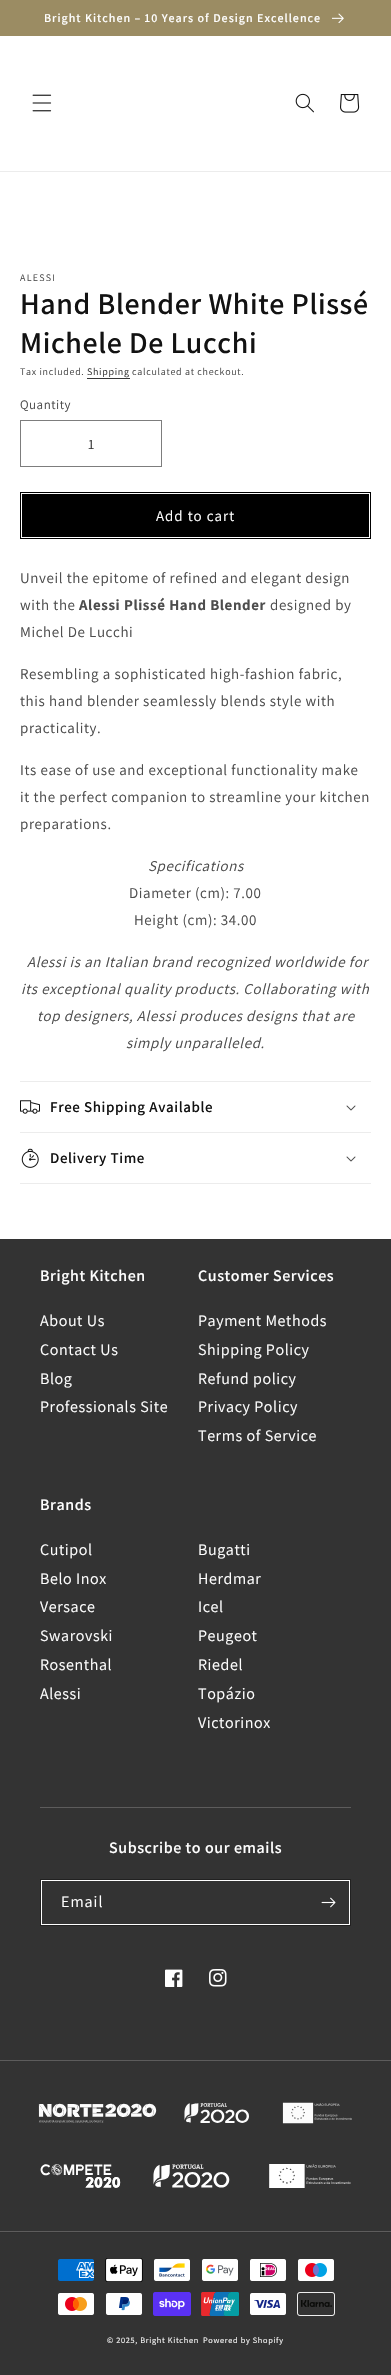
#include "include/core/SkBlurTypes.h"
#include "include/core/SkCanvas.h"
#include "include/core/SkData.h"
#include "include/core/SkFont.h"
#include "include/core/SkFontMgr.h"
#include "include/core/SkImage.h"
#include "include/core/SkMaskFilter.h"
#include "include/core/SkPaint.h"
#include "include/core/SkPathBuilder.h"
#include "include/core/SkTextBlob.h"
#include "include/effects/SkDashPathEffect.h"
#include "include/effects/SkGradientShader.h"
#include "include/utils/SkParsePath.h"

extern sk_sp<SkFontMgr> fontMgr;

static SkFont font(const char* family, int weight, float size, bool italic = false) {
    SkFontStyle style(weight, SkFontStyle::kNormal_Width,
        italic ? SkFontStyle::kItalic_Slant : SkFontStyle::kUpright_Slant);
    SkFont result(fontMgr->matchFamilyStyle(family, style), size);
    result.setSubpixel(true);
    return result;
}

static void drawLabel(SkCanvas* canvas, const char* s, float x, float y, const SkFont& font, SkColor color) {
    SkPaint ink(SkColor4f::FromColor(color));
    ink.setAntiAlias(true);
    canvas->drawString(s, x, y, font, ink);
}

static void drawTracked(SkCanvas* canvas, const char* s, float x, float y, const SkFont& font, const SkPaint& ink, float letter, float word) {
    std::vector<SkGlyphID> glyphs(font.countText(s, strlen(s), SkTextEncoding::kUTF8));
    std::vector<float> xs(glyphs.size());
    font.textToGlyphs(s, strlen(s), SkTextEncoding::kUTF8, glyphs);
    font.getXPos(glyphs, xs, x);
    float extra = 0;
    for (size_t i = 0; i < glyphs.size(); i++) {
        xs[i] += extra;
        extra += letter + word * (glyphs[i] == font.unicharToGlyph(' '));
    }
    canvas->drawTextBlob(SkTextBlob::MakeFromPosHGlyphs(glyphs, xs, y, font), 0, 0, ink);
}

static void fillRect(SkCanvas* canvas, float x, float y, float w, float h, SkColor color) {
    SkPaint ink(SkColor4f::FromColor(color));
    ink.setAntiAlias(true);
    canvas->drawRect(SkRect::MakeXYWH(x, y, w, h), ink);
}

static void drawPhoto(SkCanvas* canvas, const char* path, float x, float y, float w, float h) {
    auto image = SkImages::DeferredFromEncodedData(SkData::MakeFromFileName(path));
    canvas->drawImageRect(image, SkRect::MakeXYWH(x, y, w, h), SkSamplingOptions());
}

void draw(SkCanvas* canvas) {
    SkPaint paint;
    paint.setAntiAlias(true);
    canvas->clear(0xFFFFFFFF);
    fillRect(canvas, 0, 0, 391, 36, 0xFF9B8C63);
    SkFont font1 = font("Assistant", 600, 12);
    paint.setColor(0xFFFFFFFF);
    drawTracked(canvas, "Bright Kitchen – 10 Years of Design Excellence", 44, 22, font1, paint, 1, 0);
    drawPhoto(canvas, "assets/img1.png", 332, 13, 12, 10);
    fillRect(canvas, 0, 171, 391, 1, 0xFFECECEC);
    drawPhoto(canvas, "assets/img2.png", 32, 94, 20, 18);
    drawPhoto(canvas, "assets/img3.png", 295, 93, 19, 20);
    drawPhoto(canvas, "assets/img4.png", 340, 94, 20, 19);
    SkFont font2 = font("Assistant", 400, 10);
    paint.setColor(0xFF4D4D4D);
    drawTracked(canvas, "ALESSI", 20, 281, font2, paint, 1.25f, 0);
    SkFont font3 = font("Assistant", 600, 30);
    paint.setColor(0xFF121212);
    drawTracked(canvas, "Hand Blender White Plissé", 20, 314, font3, paint, 0.6f, 0);
    drawTracked(canvas, "Michele De Lucchi", 20, 353, font3, paint, 0.6f, 0);
    paint.setColor(0xFF4D4D4D);
    drawTracked(canvas, "Tax included.", 20, 375, font2, paint, 0.7f, 0);
    paint.setColor(0xFF363636);
    drawTracked(canvas, "Shipping", 87, 375, font2, paint, 0.7f, 0);
    fillRect(canvas, 87, 378, 43, 1, 0xFF363636);
    paint.setColor(0xFF4D4D4D);
    drawTracked(canvas, "calculated at checkout.", 132, 375, font2, paint, 0.7f, 0);
    SkFont font4 = font("Assistant", 400, 13);
    drawTracked(canvas, "Quantity", 20, 409, font4, paint, 0.5f, 0);
    paint.setStroke(true);
    paint.setStrokeWidth(1);
    paint.setColor(0xFF7D7D7D);
    canvas->drawRect(SkRect::MakeXYWH(20.5f, 420.5f, 141, 46), paint);
    SkFont font5 = font("Assistant", 400, 14);
    drawLabel(canvas, "1", 88, 449, font5, 0xFF363636);
    fillRect(canvas, 20, 492, 351, 47, 0xFF000000);
    paint.setColor(0xFFFFFFFF);
    canvas->drawRect(SkRect::MakeXYWH(21.5f, 493.5f, 348, 44), paint);
    SkFont font6 = font("Assistant", 400, 15);
    paint.setStroke(false);
    drawTracked(canvas, "Add to cart", 156, 521, font6, paint, 1, 0);
    paint.setColor(0xFF4D4D4D);
    drawTracked(canvas, "Unveil the epitome of refined and elegant design", 20, 583, font6, paint, 0.6f, 0);
    drawTracked(canvas, "with the", 20, 610, font6, paint, 0.6f, 0);
    SkFont font7 = font("Assistant", 700, 15);
    drawTracked(canvas, "Alessi Plissé Hand Blender", 79, 610, font7, paint, 0.6f, 0);
    drawTracked(canvas, "designed by", 270, 610, font6, paint, 0.6f, 0);
    drawTracked(canvas, "Michel De Lucchi", 20, 637, font6, paint, 0.6f, 0);
    drawTracked(canvas, "Resembling a sophisticated high-fashion fabric,", 20, 679, font6, paint, 0.6f, 0);
    drawTracked(canvas, "this hand blender seamlessly blends style with", 20, 706, font6, paint, 0.6f, 0);
    drawTracked(canvas, "practicality.", 20, 733, font6, paint, 0.6f, 0);
    drawTracked(canvas, "Its ease of use and exceptional functionality make", 20, 775, font6, paint, 0.6f, 0);
    drawTracked(canvas, "it the perfect companion to streamline your kitchen", 20, 802, font6, paint, 0.6f, 0);
    drawTracked(canvas, "preparations.", 20, 829, font6, paint, 0.6f, 0);
    SkFont font8 = font("Assistant", 400, 15, true);
    drawTracked(canvas, "Specifications", 148, 871, font8, paint, 0.6f, 0);
    drawTracked(canvas, "Diameter (cm): 7.00", 129, 898, font6, paint, 0.6f, 0);
    drawTracked(canvas, "Height (cm): 34.00", 134, 925, font6, paint, 0.6f, 0);
    drawTracked(canvas, "Alessi is an Italian brand recognized worldwide for", 27, 967, font8, paint, 0.6f, 0);
    drawTracked(canvas, "its exceptional quality products. Collaborating with", 21, 994, font8, paint, 0.6f, 0);
    drawTracked(canvas, "top designers, Alessi produces designs that are", 37, 1021, font8, paint, 0.6f, 0);
    drawTracked(canvas, "simply unparalleled.", 126, 1048, font8, paint, 0.6f, 0);
    fillRect(canvas, 20, 1081, 351, 1, 0xFFECECEC);
    fillRect(canvas, 20, 1132, 351, 1, 0xFFECECEC);
    drawPhoto(canvas, "assets/img5.png", 20, 1100, 20, 14);
    SkFont font9 = font("Assistant", 600, 15);
    paint.setColor(0xFF121212);
    drawTracked(canvas, "Free Shipping Available", 50, 1112, font9, paint, 0.6f, 0);
    drawPhoto(canvas, "assets/img6.png", 346, 1105, 10, 6);
    fillRect(canvas, 20, 1183, 351, 1, 0xFFECECEC);
    drawPhoto(canvas, "assets/img7.png", 21, 1148, 18, 20);
    drawTracked(canvas, "Delivery Time", 50, 1163, font9, paint, 0.6f, 0);
    drawPhoto(canvas, "assets/img6.png", 346, 1156, 10, 6);
    fillRect(canvas, 0, 1239, 391, 1136, 0xFF333333);
    SkFont font10 = font("Assistant", 600, 16);
    paint.setColor(0xFFFFFFFF);
    drawTracked(canvas, "Bright Kitchen", 40, 1281, font10, paint, 0.6f, 0);
    SkFont font11 = font("Assistant", 400, 16);
    drawTracked(canvas, "About Us", 40, 1326, font11, paint, 0.6f, 0);
    drawTracked(canvas, "Contact Us", 40, 1355, font11, paint, 0.6f, 0);
    drawTracked(canvas, "Blog", 40, 1384, font11, paint, 0.6f, 0);
    drawTracked(canvas, "Professionals Site", 40, 1412, font11, paint, 0.6f, 0);
    drawTracked(canvas, "Customer Services", 198, 1281, font10, paint, 0.6f, 0);
    drawTracked(canvas, "Payment Methods", 198, 1326, font11, paint, 0.6f, 0);
    drawTracked(canvas, "Shipping Policy", 198, 1355, font11, paint, 0.6f, 0);
    drawTracked(canvas, "Refund policy", 198, 1384, font11, paint, 0.6f, 0);
    drawTracked(canvas, "Privacy Policy", 198, 1412, font11, paint, 0.6f, 0);
    drawTracked(canvas, "Terms of Service", 198, 1441, font11, paint, 0.6f, 0);
    drawTracked(canvas, "Brands", 40, 1510, font10, paint, 0.6f, 0);
    drawTracked(canvas, "Cutipol", 40, 1555, font11, paint, 0.6f, 0);
    drawTracked(canvas, "Belo Inox", 40, 1584, font11, paint, 0.6f, 0);
    drawTracked(canvas, "Versace", 40, 1612, font11, paint, 0.6f, 0);
    drawTracked(canvas, "Swarovski", 40, 1641, font11, paint, 0.6f, 0);
    drawTracked(canvas, "Rosenthal", 40, 1670, font11, paint, 0.6f, 0);
    drawTracked(canvas, "Alessi", 40, 1699, font11, paint, 0.6f, 0);
    drawTracked(canvas, "Bugatti", 198, 1555, font11, paint, 0.6f, 0);
    drawTracked(canvas, "Herdmar", 198, 1584, font11, paint, 0.6f, 0);
    drawTracked(canvas, "Icel", 198, 1612, font11, paint, 0.6f, 0);
    drawTracked(canvas, "Peugeot", 198, 1641, font11, paint, 0.6f, 0);
    drawTracked(canvas, "Riedel", 198, 1670, font11, paint, 0.6f, 0);
    drawTracked(canvas, "Topázio", 198, 1699, font11, paint, 0.6f, 0);
    drawTracked(canvas, "Victorinox", 198, 1728, font11, paint, 0.6f, 0);
    fillRect(canvas, 40, 1807, 311, 1, 0xFF5D5C5C);
    drawTracked(canvas, "Subscribe to our emails", 109, 1853, font10, paint, 0.6f, 0);
    paint.setStroke(true);
    canvas->drawRect(SkRect::MakeXYWH(41.5f, 1880.5f, 308, 44), paint);
    paint.setColor(0xFF212121);
    canvas->drawRect(SkRect::MakeXYWH(40.5f, 1879.5f, 310, 46), paint);
    paint.setStroke(false);
    paint.setColor(0xFFFFFFFF);
    drawTracked(canvas, "Email", 61, 1907, font11, paint, 1, 0);
    drawPhoto(canvas, "assets/img8.png", 321, 1897, 15, 11);
    drawPhoto(canvas, "assets/img9.png", 165, 1969, 18, 18);
    drawPhoto(canvas, "assets/img10.png", 209, 1969, 18, 18);
    fillRect(canvas, 0, 2060, 391, 1, 0xFF5D5C5C);
    fillRect(canvas, 0, 2231, 391, 1, 0xFF5D5C5C);
    drawPhoto(canvas, "assets/img11.png", 38, 2102, 314, 22);
    drawPhoto(canvas, "assets/img12.png", 40, 2164, 311, 24);
    fillRect(canvas, 0, 2232, 391, 1, 0xFF303030);
    drawPhoto(canvas, "assets/img13.png", 58, 2259, 36, 22);
    drawPhoto(canvas, "assets/img14.png", 105, 2258, 38, 24);
    drawPhoto(canvas, "assets/img15.png", 154, 2259, 36, 22);
    drawPhoto(canvas, "assets/img16.png", 202, 2259, 36, 22);
    drawPhoto(canvas, "assets/img17.png", 250, 2259, 36, 22);
    drawPhoto(canvas, "assets/img18.png", 298, 2259, 36, 22);
    drawPhoto(canvas, "assets/img19.png", 58, 2293, 36, 22);
    drawPhoto(canvas, "assets/img20.png", 106, 2293, 36, 22);
    drawPhoto(canvas, "assets/img21.png", 153, 2292, 38, 24);
    drawPhoto(canvas, "assets/img22.png", 201, 2292, 38, 24);
    drawPhoto(canvas, "assets/img23.png", 250, 2293, 36, 22);
    drawPhoto(canvas, "assets/img24.png", 297, 2292, 38, 24);
    SkFont font12 = font("Assistant", 400, 8.25f);
    drawTracked(canvas, "© 2025, Bright Kitchen", 107, 2343, font12, paint, 0.7f, 0);
    drawTracked(canvas, "Powered by Shopify", 203, 2343, font12, paint, 0.7f, 0);
}
